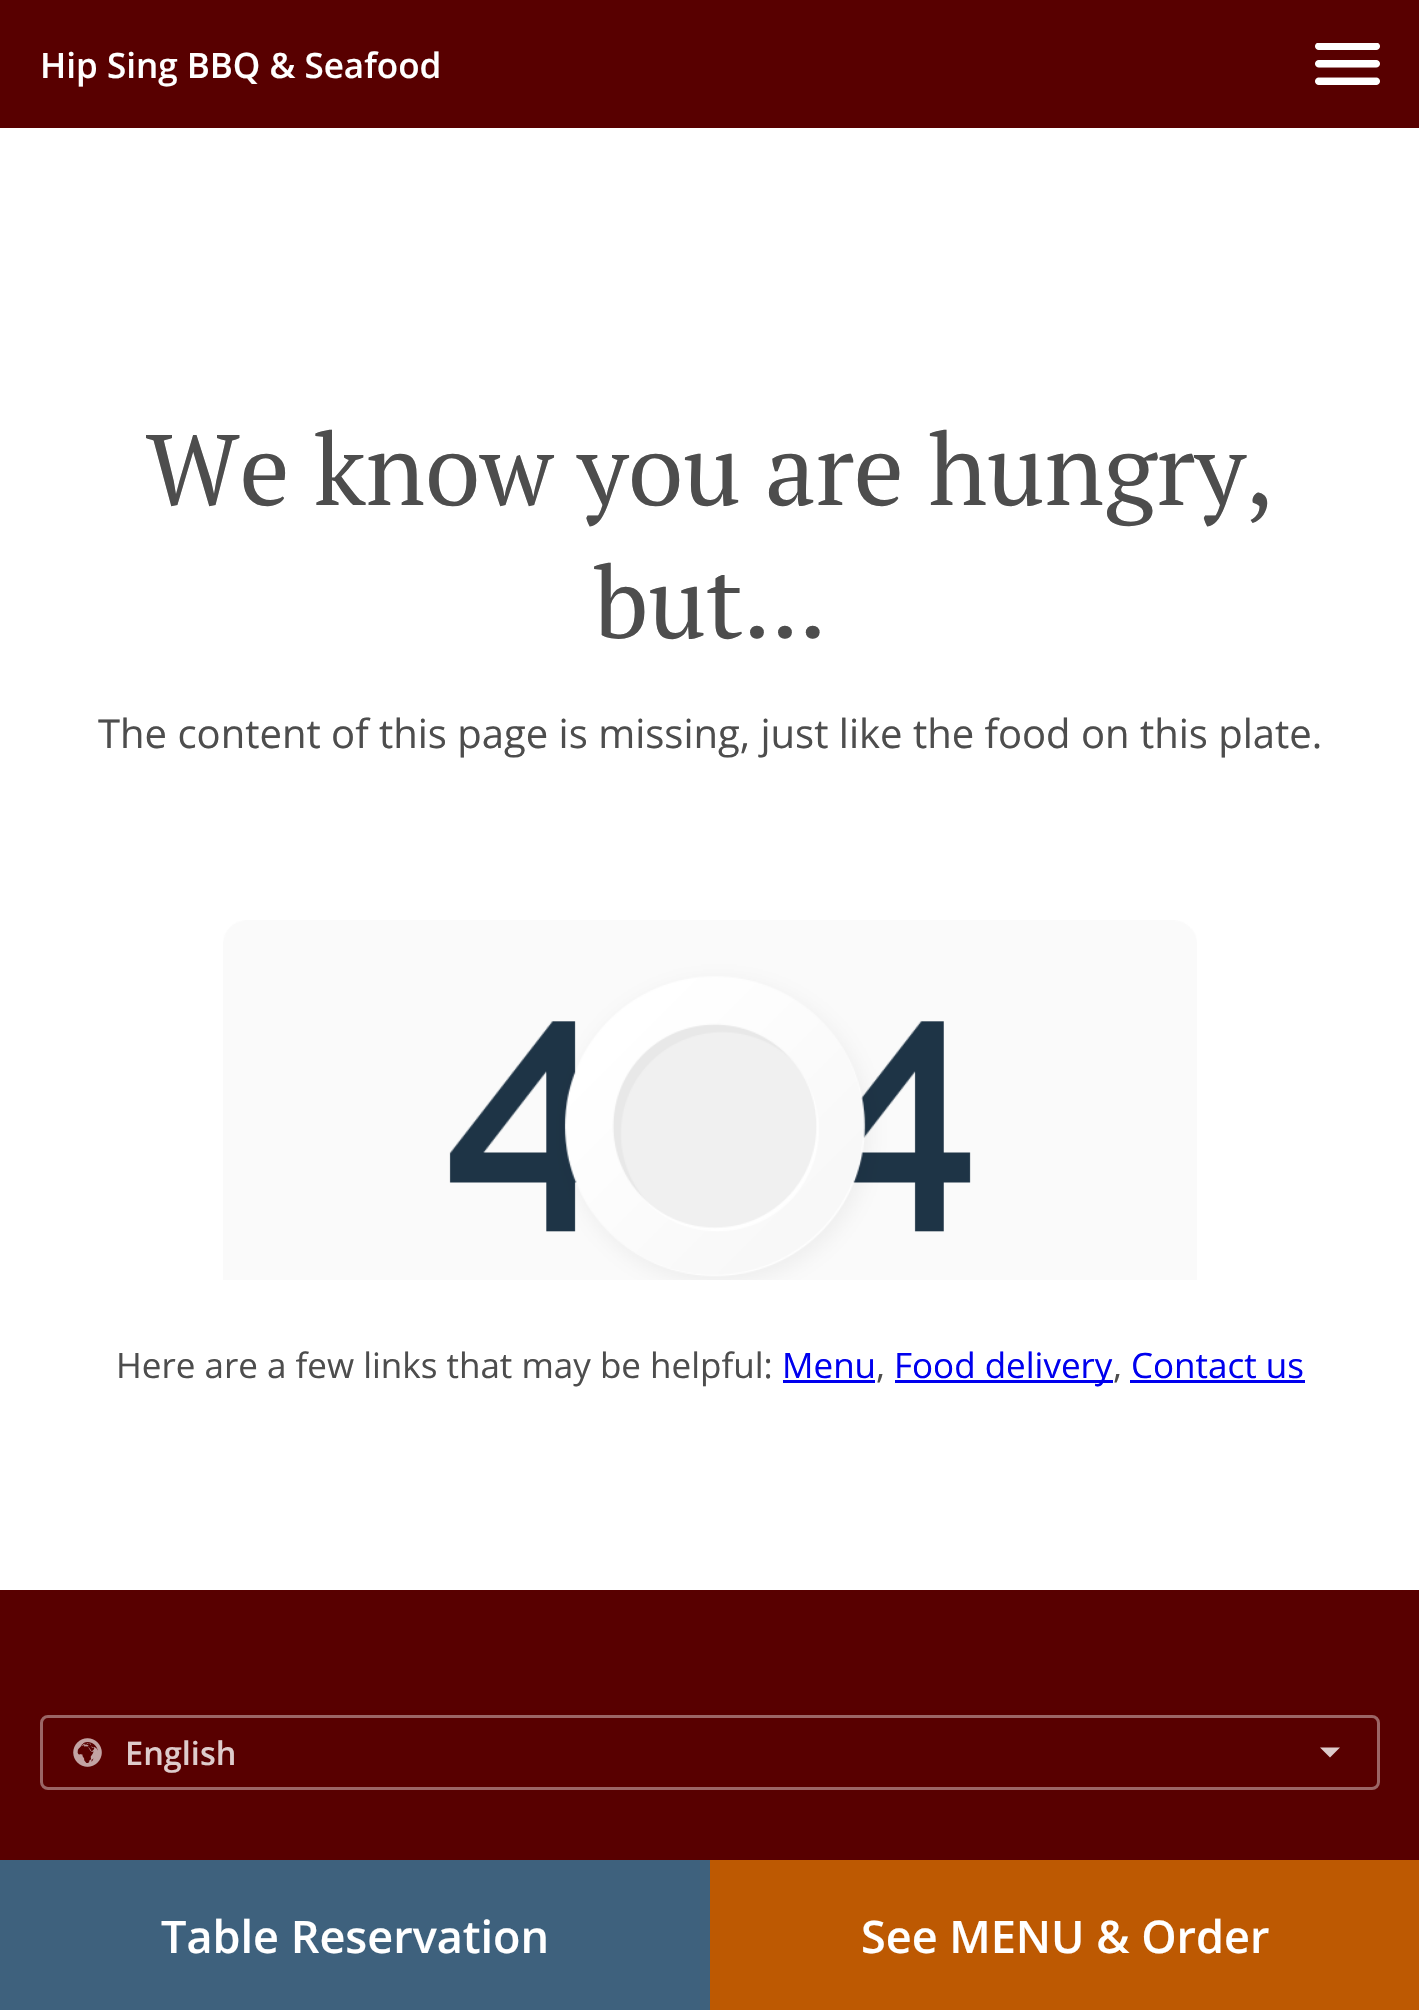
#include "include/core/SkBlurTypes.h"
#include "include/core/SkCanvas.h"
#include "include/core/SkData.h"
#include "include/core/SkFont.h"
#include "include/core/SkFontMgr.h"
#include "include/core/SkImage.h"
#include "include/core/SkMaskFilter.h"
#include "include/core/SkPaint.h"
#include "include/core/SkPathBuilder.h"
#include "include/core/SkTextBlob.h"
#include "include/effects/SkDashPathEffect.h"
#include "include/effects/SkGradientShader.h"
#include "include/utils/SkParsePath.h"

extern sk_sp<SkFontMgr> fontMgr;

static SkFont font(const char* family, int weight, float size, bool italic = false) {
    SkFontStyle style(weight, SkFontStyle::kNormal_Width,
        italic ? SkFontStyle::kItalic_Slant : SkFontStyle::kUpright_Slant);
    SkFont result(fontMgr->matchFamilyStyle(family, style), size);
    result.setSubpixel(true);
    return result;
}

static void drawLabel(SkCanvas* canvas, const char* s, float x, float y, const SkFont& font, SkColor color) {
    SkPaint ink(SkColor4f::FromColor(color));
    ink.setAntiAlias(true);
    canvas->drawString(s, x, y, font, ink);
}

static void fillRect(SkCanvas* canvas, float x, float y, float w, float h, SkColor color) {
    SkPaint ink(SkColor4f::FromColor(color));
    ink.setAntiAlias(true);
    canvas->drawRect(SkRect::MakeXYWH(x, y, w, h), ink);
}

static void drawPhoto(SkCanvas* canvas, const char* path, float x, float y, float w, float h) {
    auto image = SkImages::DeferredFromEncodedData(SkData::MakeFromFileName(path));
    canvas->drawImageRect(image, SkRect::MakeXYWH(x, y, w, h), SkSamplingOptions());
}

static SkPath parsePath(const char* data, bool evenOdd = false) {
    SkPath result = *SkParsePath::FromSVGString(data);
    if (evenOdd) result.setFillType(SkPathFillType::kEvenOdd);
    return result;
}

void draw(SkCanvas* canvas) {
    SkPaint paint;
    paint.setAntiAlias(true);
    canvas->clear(0xFFFFFFFF);
    fillRect(canvas, 0, 0, 1419, 128, 0xFF580000);
    SkFont font1 = font("Open Sans", 600, 35);
    drawLabel(canvas, "Hip Sing BBQ & Seafood", 40, 78, font1, 0xFFFFFFFF);
    drawPhoto(canvas, "assets/img1.png", 1315, 43, 65, 42);
    SkFont font2 = font("PT Serif", 400, 100);
    drawLabel(canvas, "We know you are hungry,", 146, 505, font2, 0xFF4D4D4D);
    drawLabel(canvas, "but...", 594, 638, font2, 0xFF4D4D4D);
    SkFont font3 = font("Open Sans", 400, 40);
    drawLabel(canvas, "The content of this page is missing, just like the food on this plate.", 98, 748, font3, 0xFF4D4D4D);
    drawPhoto(canvas, "assets/img2.png", 223, 920, 974, 360);
    SkFont font4 = font("Open Sans", 400, 35);
    drawLabel(canvas, "Here are a few links that may be helpful:", 116, 1378, font4, 0xFF4D4D4D);
    drawLabel(canvas, "Menu", 782, 1378, font4, 0xFF0000EE);
    drawLabel(canvas, ",", 876, 1378, font4, 0xFF4D4D4D);
    fillRect(canvas, 783, 1380, 92, 3, 0xFF0000EE);
    fillRect(canvas, 895, 1380, 218, 3, 0xFF0000EE);
    drawLabel(canvas, "Food delivery", 894, 1378, font4, 0xFF0000EE);
    drawLabel(canvas, ",", 1113, 1378, font4, 0xFF4D4D4D);
    fillRect(canvas, 1130, 1380, 175, 3, 0xFF0000EE);
    drawLabel(canvas, "Contact us", 1131, 1378, font4, 0xFF0000EE);
    fillRect(canvas, 0, 1590, 1419, 270, 0xFF580000);
    drawPhoto(canvas, "assets/img3.png", 73, 1738, 29, 29);
    paint.setStroke(true);
    paint.setStrokeWidth(3);
    paint.setColor(0xFF9B6666);
    canvas->drawRoundRect(SkRect::MakeXYWH(41.5f, 1716.5f, 1337, 72), 6.5f, 6.5f, paint);
    SkFont font5 = font("Open Sans", 600, 32.5f);
    drawLabel(canvas, "English", 125, 1765, font5, 0xFFDECCCC);
    paint.setStroke(false);
    paint.setColor(0xFFDECCCC);
    canvas->drawPath(parsePath("M1320 1747.5H1340L1330 1757.5Z"), paint);
    fillRect(canvas, 0, 1860, 710, 150, 0xFF3E617D);
    SkFont font6 = font("Open Sans", 600, 45);
    drawLabel(canvas, "Table Reservation", 161, 1953, font6, 0xFFFFFFFF);
    fillRect(canvas, 710, 1860, 709, 150, 0xFFBD5902);
    drawLabel(canvas, "See MENU & Order", 861, 1953, font6, 0xFFFFFFFF);
}
